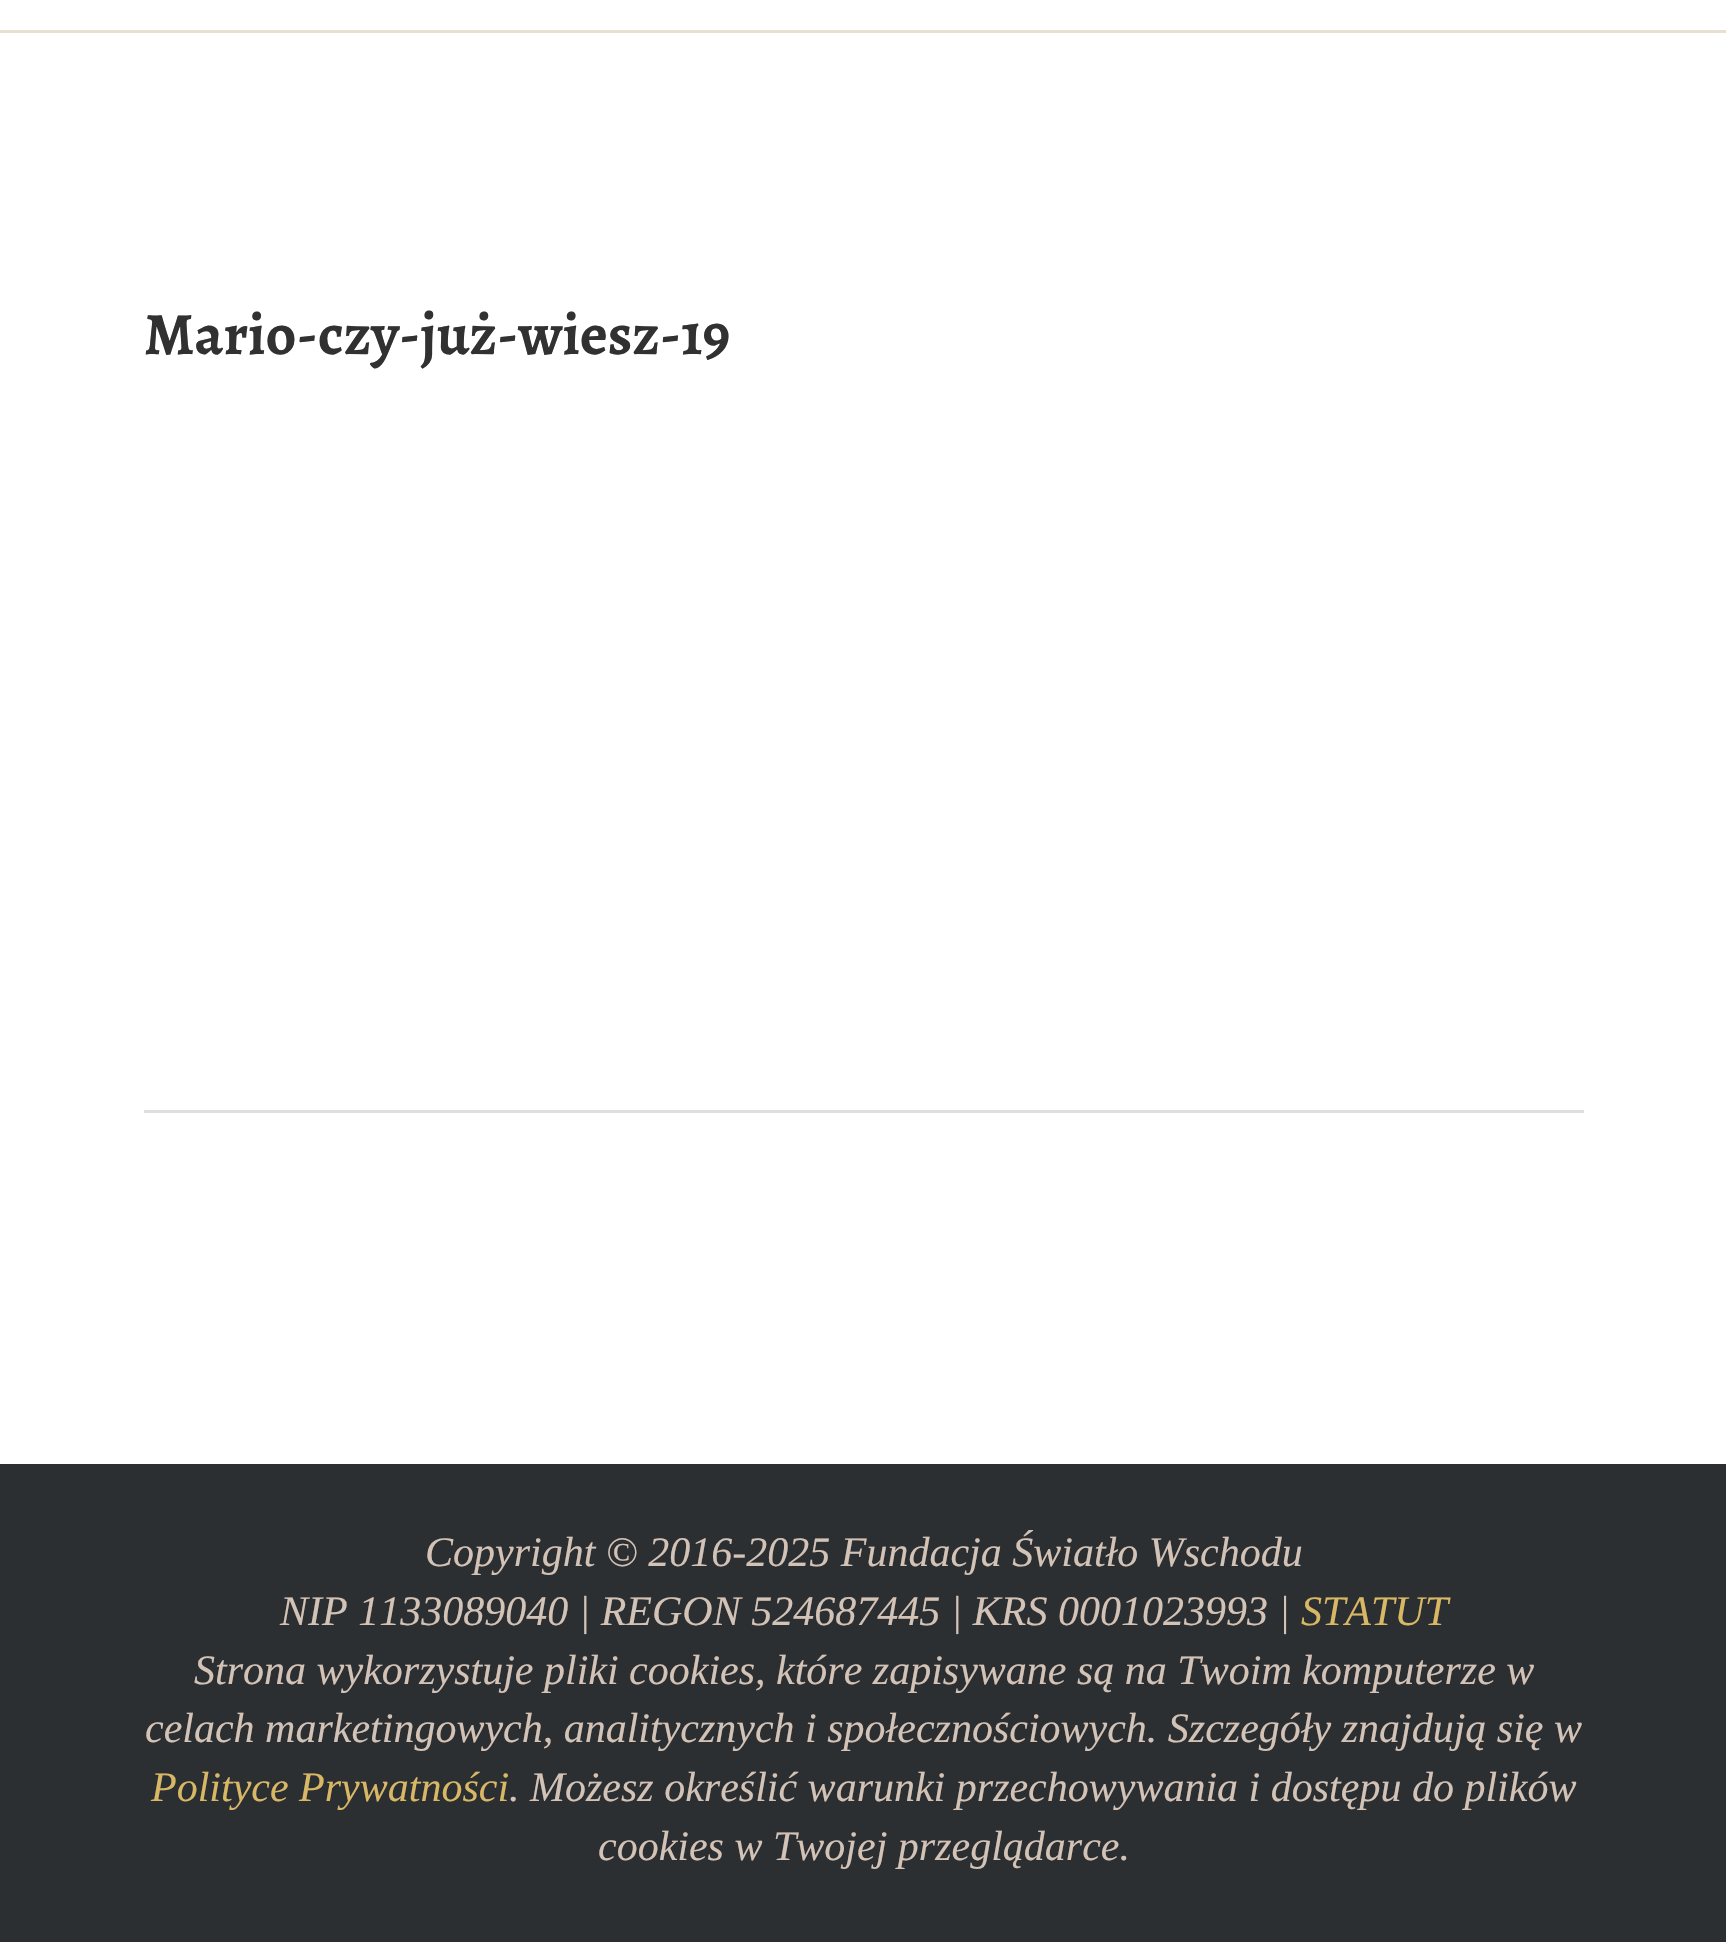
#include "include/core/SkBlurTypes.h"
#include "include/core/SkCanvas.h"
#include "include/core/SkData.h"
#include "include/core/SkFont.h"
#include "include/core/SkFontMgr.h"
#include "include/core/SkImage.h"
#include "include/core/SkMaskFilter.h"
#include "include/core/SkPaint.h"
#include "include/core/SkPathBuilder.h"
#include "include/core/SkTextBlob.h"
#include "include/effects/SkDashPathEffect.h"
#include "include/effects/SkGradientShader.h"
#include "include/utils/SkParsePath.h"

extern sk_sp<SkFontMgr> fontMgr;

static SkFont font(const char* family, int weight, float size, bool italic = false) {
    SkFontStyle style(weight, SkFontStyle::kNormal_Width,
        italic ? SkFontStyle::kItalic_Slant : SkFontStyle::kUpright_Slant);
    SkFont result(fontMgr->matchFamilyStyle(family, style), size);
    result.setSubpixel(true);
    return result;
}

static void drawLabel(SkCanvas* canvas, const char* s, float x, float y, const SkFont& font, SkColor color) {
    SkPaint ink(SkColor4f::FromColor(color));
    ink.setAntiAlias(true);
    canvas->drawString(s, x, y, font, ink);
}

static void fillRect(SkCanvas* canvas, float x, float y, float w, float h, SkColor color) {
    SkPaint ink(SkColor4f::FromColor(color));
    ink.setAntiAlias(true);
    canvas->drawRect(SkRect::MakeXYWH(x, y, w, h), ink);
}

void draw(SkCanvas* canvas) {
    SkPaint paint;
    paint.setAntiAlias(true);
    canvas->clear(0xFFFFFFFF);
    fillRect(canvas, 0, 30, 1726, 3, 0xFFE7DFD2);
    SkFont font1 = font("Alegreya", 700, 60);
    drawLabel(canvas, "Mario-czy-już-wiesz-19", 144, 354, font1, 0xFF313131);
    fillRect(canvas, 144, 1110, 1440, 3, 0xFFDEDEDE);
    fillRect(canvas, 0, 1464, 1726, 478, 0xFF2C2F32);
    SkFont font2 = font("Liberation Serif", 400, 42, true);
    drawLabel(canvas, "Copyright © 2016-2025 Fundacja Światło Wschodu", 425, 1566, font2, 0xFFD3C2B6);
    drawLabel(canvas, "NIP 1133089040 | REGON 524687445 | KRS 0001023993 |", 280, 1625, font2, 0xFFD3C2B6);
    drawLabel(canvas, "STATUT", 1301, 1625, font2, 0xFFD8B765);
    drawLabel(canvas, "Strona wykorzystuje pliki cookies, które zapisywane są na Twoim komputerze w", 194, 1684, font2, 0xFFD3C2B6);
    drawLabel(canvas, "celach marketingowych, analitycznych i społecznościowych. Szczegóły znajdują się w", 145, 1742, font2, 0xFFD3C2B6);
    drawLabel(canvas, "Polityce Prywatności", 151, 1801, font2, 0xFFD8B765);
    drawLabel(canvas, ". Możesz określić warunki przechowywania i dostępu do plików", 509, 1801, font2, 0xFFD3C2B6);
    drawLabel(canvas, "cookies w Twojej przeglądarce.", 598, 1860, font2, 0xFFD3C2B6);
}
